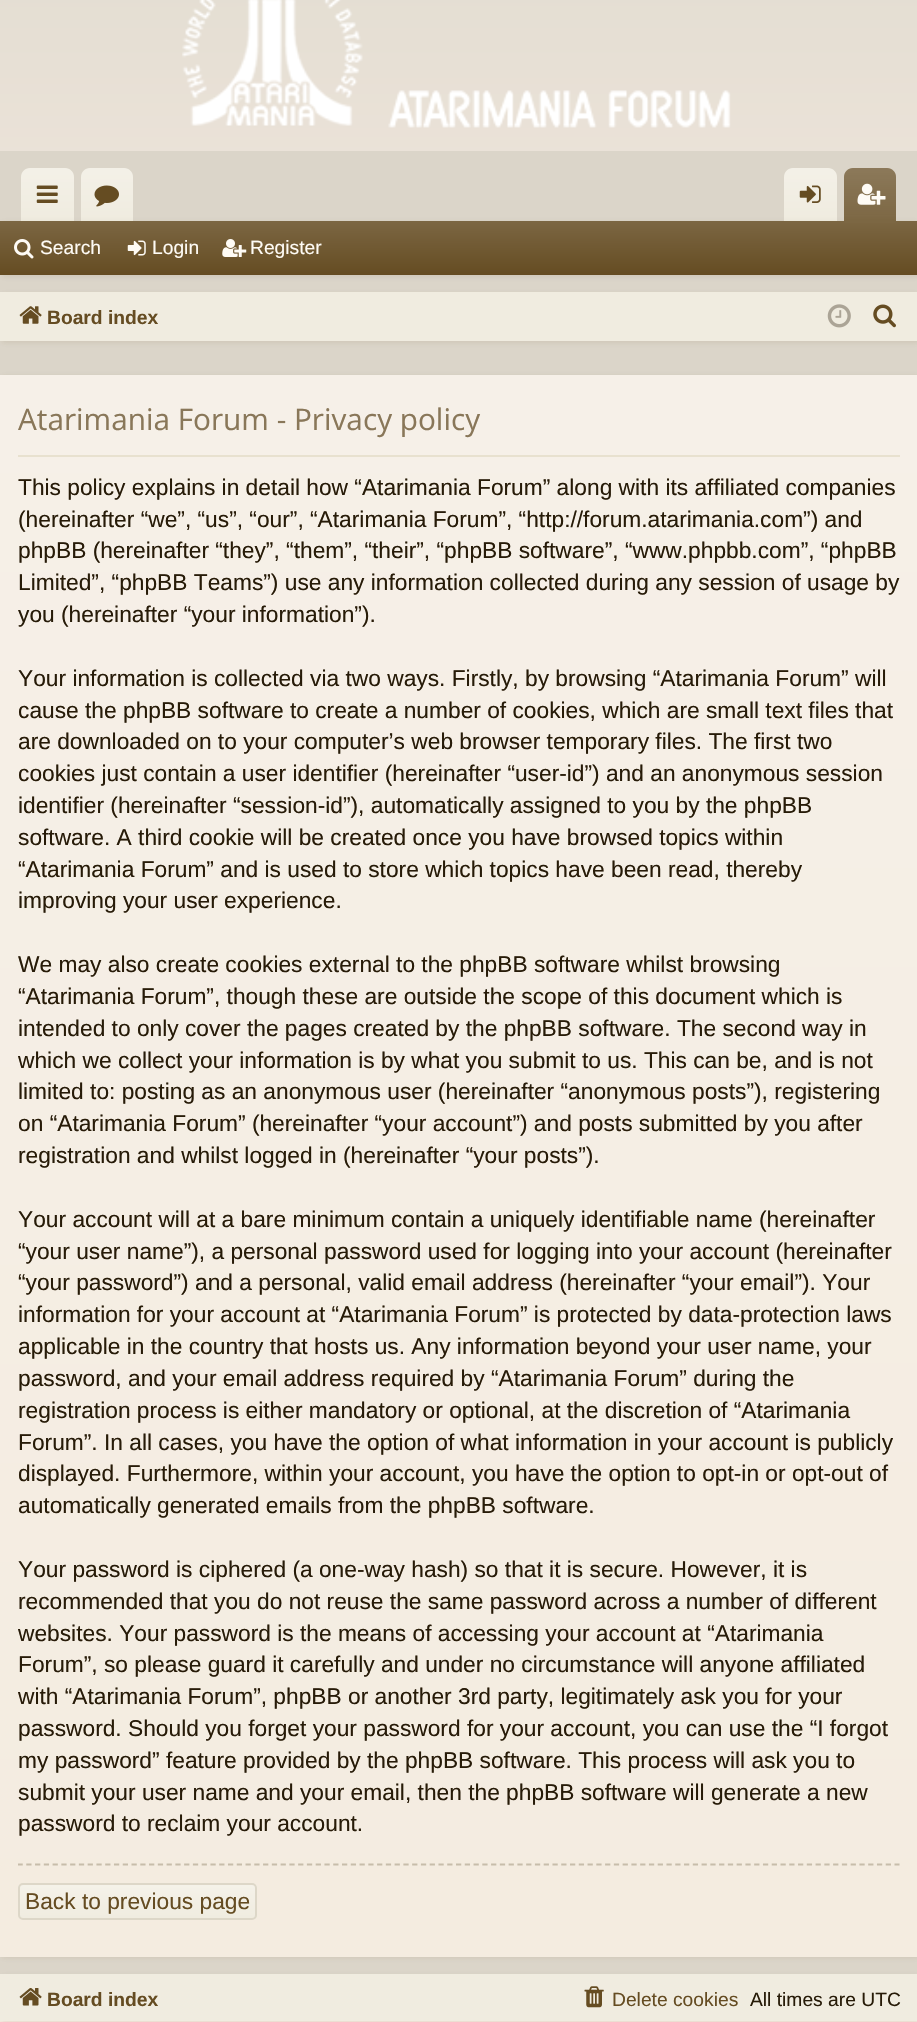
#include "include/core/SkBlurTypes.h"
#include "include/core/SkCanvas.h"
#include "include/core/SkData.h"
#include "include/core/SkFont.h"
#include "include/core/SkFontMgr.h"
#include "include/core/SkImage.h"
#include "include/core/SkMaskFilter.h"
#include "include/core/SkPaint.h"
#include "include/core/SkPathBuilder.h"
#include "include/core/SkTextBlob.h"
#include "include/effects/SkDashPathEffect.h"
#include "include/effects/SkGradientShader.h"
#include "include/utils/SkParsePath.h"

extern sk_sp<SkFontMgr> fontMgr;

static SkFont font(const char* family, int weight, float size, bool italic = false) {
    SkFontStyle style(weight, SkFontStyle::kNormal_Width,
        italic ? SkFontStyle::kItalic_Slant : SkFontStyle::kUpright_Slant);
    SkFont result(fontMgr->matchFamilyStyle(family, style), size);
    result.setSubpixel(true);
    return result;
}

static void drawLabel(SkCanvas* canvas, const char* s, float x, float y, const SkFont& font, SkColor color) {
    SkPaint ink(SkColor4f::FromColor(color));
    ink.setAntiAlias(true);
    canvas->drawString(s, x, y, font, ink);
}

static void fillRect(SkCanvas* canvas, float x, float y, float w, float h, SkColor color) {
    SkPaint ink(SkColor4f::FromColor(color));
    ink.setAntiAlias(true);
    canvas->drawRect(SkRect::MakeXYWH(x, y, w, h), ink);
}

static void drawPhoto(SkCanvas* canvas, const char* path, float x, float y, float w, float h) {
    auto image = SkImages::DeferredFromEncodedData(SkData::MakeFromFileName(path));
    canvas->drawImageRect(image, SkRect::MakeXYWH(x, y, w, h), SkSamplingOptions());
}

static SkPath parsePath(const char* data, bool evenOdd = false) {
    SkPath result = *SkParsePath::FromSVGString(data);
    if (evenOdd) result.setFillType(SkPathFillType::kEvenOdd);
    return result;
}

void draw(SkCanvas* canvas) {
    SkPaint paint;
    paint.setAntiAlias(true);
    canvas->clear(0xFFFFFFFF);
    {
        const SkColor colors[] = {0xFFE2DDD1, 0xFFF0E5DC, 0xFFF6E9E0};
        const float stops[] = {0, 0.16f, 1};
        const SkPoint ends[] = {{458, -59}, {459, 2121}};
        paint.setShader(SkGradientShader::MakeLinear(ends, colors, stops, 3, SkTileMode::kClamp));
        paint.setAlpha(255);
    }
    canvas->drawRect(SkRect::MakeXYWH(0, 0, 917, 2022), paint);
    drawPhoto(canvas, "assets/img1.png", 182, 0, 549, 128);
    fillRect(canvas, 0, 151, 917, 1823, 0xFFDBD5C9);
    paint.setShader(nullptr);
    paint.setColor(0xFFF0ECE0);
    canvas->drawPath(parsePath("M30 168H65C70 168 74 172 74 177V221H21V177C21 172 25 168 30 168Z"), paint);
    {
        const SkColor colors[] = {0x40FFFFFF, 0x00FFFFFF};
        const float stops[] = {0, 1};
        const SkPoint ends[] = {{47, 168}, {47, 221}};
        paint.setShader(SkGradientShader::MakeLinear(ends, colors, stops, 2, SkTileMode::kClamp));
        paint.setAlpha(255);
    }
    canvas->drawPath(parsePath("M30 168H65C70 168 74 172 74 177V221H21V177C21 172 25 168 30 168Z"), paint);
    drawPhoto(canvas, "assets/img2.png", 36, 185, 22, 18);
    paint.setShader(nullptr);
    paint.setColor(0xFFF0ECE0);
    canvas->drawPath(parsePath("M90 168H124C129 168 133 172 133 177V221H81V177C81 172 85 168 90 168Z"), paint);
    {
        const SkColor colors[] = {0x40FFFFFF, 0x00FFFFFF};
        const float stops[] = {0, 1};
        const SkPoint ends[] = {{107, 168}, {107, 221}};
        paint.setShader(SkGradientShader::MakeLinear(ends, colors, stops, 2, SkTileMode::kClamp));
        paint.setAlpha(255);
    }
    canvas->drawPath(parsePath("M90 168H124C129 168 133 172 133 177V221H81V177C81 172 85 168 90 168Z"), paint);
    drawPhoto(canvas, "assets/img3.png", 94, 185, 25, 22);
    paint.setShader(nullptr);
    paint.setColor(0xFFF0ECE0);
    canvas->drawPath(parsePath("M793 168H828C833 168 837 172 837 177V221H784V177C784 172 788 168 793 168Z"), paint);
    {
        const SkColor colors[] = {0x40FFFFFF, 0x00FFFFFF};
        const float stops[] = {0, 1};
        const SkPoint ends[] = {{810, 168}, {810, 221}};
        paint.setShader(SkGradientShader::MakeLinear(ends, colors, stops, 2, SkTileMode::kClamp));
        paint.setAlpha(255);
    }
    canvas->drawPath(parsePath("M793 168H828C833 168 837 172 837 177V221H784V177C784 172 788 168 793 168Z"), paint);
    drawPhoto(canvas, "assets/img4.png", 799, 185, 22, 18);
    paint.setShader(nullptr);
    paint.setColor(0xFF654C22);
    canvas->drawPath(parsePath("M853 168H887C892 168 896 172 896 177V221H844V177C844 172 848 168 853 168Z"), paint);
    {
        const SkColor colors[] = {0x40FFFFFF, 0x26FFFFFF};
        const float stops[] = {0, 1};
        const SkPoint ends[] = {{870, 168}, {870, 221}};
        paint.setShader(SkGradientShader::MakeLinear(ends, colors, stops, 2, SkTileMode::kClamp));
        paint.setAlpha(255);
    }
    canvas->drawPath(parsePath("M853 168H887C892 168 896 172 896 177V221H844V177C844 172 848 168 853 168Z"), paint);
    drawPhoto(canvas, "assets/img5.png", 857, 183, 29, 22);
    paint.setShader(nullptr);
    paint.setColor(0x1A654C22);
    paint.setMaskFilter(SkMaskFilter::MakeBlur(kNormal_SkBlurStyle, 2.5f));
    canvas->drawRect(SkRect::MakeXYWH(2, 222, 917, 55), paint);
    paint.setMaskFilter(nullptr);
    {
        const SkColor colors[] = {0xFF7C6743, 0xFF654C22};
        const float stops[] = {0, 1};
        const SkPoint ends[] = {{459, 220}, {459, 275}};
        paint.setShader(SkGradientShader::MakeLinear(ends, colors, stops, 2, SkTileMode::kClamp));
        paint.setAlpha(255);
    }
    canvas->drawRect(SkRect::MakeXYWH(0, 221, 917, 54), paint);
    paint.setShader(nullptr);
    paint.setColor(0xFF654C22);
    canvas->drawPath(parsePath("M848 219H892C894 219 896 221 896 223H844C844 221 846 219 848 219Z"), paint);
    paint.setColor(0x26FFFFFF);
    canvas->drawPath(parsePath("M848 219H892C894 219 896 221 896 223H844C844 221 846 219 848 219Z"), paint);
    drawPhoto(canvas, "assets/img6.png", 14, 239, 20, 20);
    SkFont font1 = font("Liberation Sans", 400, 19.25f);
    drawLabel(canvas, "Search", 40, 254, font1, 0xFFFEFBF5);
    drawPhoto(canvas, "assets/img7.png", 127, 240, 19, 16);
    drawLabel(canvas, "Login", 152, 254, font1, 0xFFFEFBF5);
    drawPhoto(canvas, "assets/img8.png", 222, 239, 25, 18);
    drawLabel(canvas, "Register", 250, 254, font1, 0xFFFEFBF5);
    paint.setColor(0x1A654C22);
    paint.setMaskFilter(SkMaskFilter::MakeBlur(kNormal_SkBlurStyle, 2.5f));
    canvas->drawRect(SkRect::MakeXYWH(2, 294, 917, 49), paint);
    paint.setMaskFilter(nullptr);
    fillRect(canvas, 0, 292, 917, 49, 0xFFF0ECE0);
    drawPhoto(canvas, "assets/img9.png", 19, 306, 23, 18);
    SkFont font2 = font("Liberation Sans", 700, 19.25f);
    drawLabel(canvas, "Board index", 47, 324, font2, 0xFF654C22);
    drawPhoto(canvas, "assets/img10.png", 827, 304, 24, 24);
    drawPhoto(canvas, "assets/img11.png", 873, 304, 23, 24);
    paint.setMaskFilter(SkMaskFilter::MakeBlur(kNormal_SkBlurStyle, 2.5f));
    canvas->drawRect(SkRect::MakeXYWH(2, 376, 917, 1582), paint);
    paint.setMaskFilter(nullptr);
    {
        const SkColor colors[] = {0xFFF6F0E8, 0xFFF4ECE0};
        const float stops[] = {0, 1};
        const SkPoint ends[] = {{458, 374}, {459, 1957}};
        paint.setShader(SkGradientShader::MakeLinear(ends, colors, stops, 2, SkTileMode::kClamp));
        paint.setAlpha(255);
    }
    canvas->drawRect(SkRect::MakeXYWH(0, 375, 917, 1582), paint);
    fillRect(canvas, 18, 455, 882, 2, 0xFFE8E1CF);
    SkFont font3 = font("Open Sans", 400, 29.75f);
    drawLabel(canvas, "Atarimania Forum - Privacy policy", 18, 430, font3, 0xFF897759);
    SkFont font4 = font("Liberation Sans", 400, 22.75f);
    drawLabel(canvas, "This policy explains in detail how “Atarimania Forum” along with its affiliated companies", 18, 495, font4, 0xFF271B08);
    drawLabel(canvas, "(hereinafter “we”, “us”, “our”, “Atarimania Forum”, “http://forum.atarimania.com”) and", 18, 527, font4, 0xFF271B08);
    drawLabel(canvas, "phpBB (hereinafter “they”, “them”, “their”, “phpBB software”, “www.phpbb.com”, “phpBB", 18, 558, font4, 0xFF271B08);
    drawLabel(canvas, "Limited”, “phpBB Teams”) use any information collected during any session of usage by", 18, 590, font4, 0xFF271B08);
    drawLabel(canvas, "you (hereinafter “your information”).", 18, 622, font4, 0xFF271B08);
    drawLabel(canvas, "Your information is collected via two ways. Firstly, by browsing “Atarimania Forum” will", 18, 686, font4, 0xFF271B08);
    drawLabel(canvas, "cause the phpBB software to create a number of cookies, which are small text files that", 18, 718, font4, 0xFF271B08);
    drawLabel(canvas, "are downloaded on to your computer’s web browser temporary files. The first two", 18, 749, font4, 0xFF271B08);
    drawLabel(canvas, "cookies just contain a user identifier (hereinafter “user-id”) and an anonymous session", 18, 781, font4, 0xFF271B08);
    drawLabel(canvas, "identifier (hereinafter “session-id”), automatically assigned to you by the phpBB", 18, 813, font4, 0xFF271B08);
    drawLabel(canvas, "software. A third cookie will be created once you have browsed topics within", 18, 845, font4, 0xFF271B08);
    drawLabel(canvas, "“Atarimania Forum” and is used to store which topics have been read, thereby", 18, 877, font4, 0xFF271B08);
    drawLabel(canvas, "improving your user experience.", 18, 908, font4, 0xFF271B08);
    drawLabel(canvas, "We may also create cookies external to the phpBB software whilst browsing", 18, 972, font4, 0xFF271B08);
    drawLabel(canvas, "“Atarimania Forum”, though these are outside the scope of this document which is", 18, 1004, font4, 0xFF271B08);
    drawLabel(canvas, "intended to only cover the pages created by the phpBB software. The second way in", 18, 1036, font4, 0xFF271B08);
    drawLabel(canvas, "which we collect your information is by what you submit to us. This can be, and is not", 18, 1068, font4, 0xFF271B08);
    drawLabel(canvas, "limited to: posting as an anonymous user (hereinafter “anonymous posts”), registering", 18, 1099, font4, 0xFF271B08);
    drawLabel(canvas, "on “Atarimania Forum” (hereinafter “your account”) and posts submitted by you after", 18, 1131, font4, 0xFF271B08);
    drawLabel(canvas, "registration and whilst logged in (hereinafter “your posts”).", 18, 1163, font4, 0xFF271B08);
    drawLabel(canvas, "Your account will at a bare minimum contain a uniquely identifiable name (hereinafter", 18, 1227, font4, 0xFF271B08);
    drawLabel(canvas, "“your user name”), a personal password used for logging into your account (hereinafter", 18, 1259, font4, 0xFF271B08);
    drawLabel(canvas, "“your password”) and a personal, valid email address (hereinafter “your email”). Your", 18, 1290, font4, 0xFF271B08);
    drawLabel(canvas, "information for your account at “Atarimania Forum” is protected by data-protection laws", 18, 1322, font4, 0xFF271B08);
    drawLabel(canvas, "applicable in the country that hosts us. Any information beyond your user name, your", 18, 1354, font4, 0xFF271B08);
    drawLabel(canvas, "password, and your email address required by “Atarimania Forum” during the", 18, 1386, font4, 0xFF271B08);
    drawLabel(canvas, "registration process is either mandatory or optional, at the discretion of “Atarimania", 18, 1418, font4, 0xFF271B08);
    drawLabel(canvas, "Forum”. In all cases, you have the option of what information in your account is publicly", 18, 1450, font4, 0xFF271B08);
    drawLabel(canvas, "displayed. Furthermore, within your account, you have the option to opt-in or opt-out of", 18, 1481, font4, 0xFF271B08);
    drawLabel(canvas, "automatically generated emails from the phpBB software.", 18, 1513, font4, 0xFF271B08);
    drawLabel(canvas, "Your password is ciphered (a one-way hash) so that it is secure. However, it is", 18, 1577, font4, 0xFF271B08);
    drawLabel(canvas, "recommended that you do not reuse the same password across a number of different", 18, 1609, font4, 0xFF271B08);
    drawLabel(canvas, "websites. Your password is the means of accessing your account at “Atarimania", 18, 1641, font4, 0xFF271B08);
    drawLabel(canvas, "Forum”, so please guard it carefully and under no circumstance will anyone affiliated", 18, 1672, font4, 0xFF271B08);
    drawLabel(canvas, "with “Atarimania Forum”, phpBB or another 3rd party, legitimately ask you for your", 18, 1704, font4, 0xFF271B08);
    drawLabel(canvas, "password. Should you forget your password for your account, you can use the “I forgot", 18, 1736, font4, 0xFF271B08);
    drawLabel(canvas, "my password” feature provided by the phpBB software. This process will ask you to", 18, 1768, font4, 0xFF271B08);
    drawLabel(canvas, "submit your user name and your email, then the phpBB software will generate a new", 18, 1800, font4, 0xFF271B08);
    drawLabel(canvas, "password to reclaim your account.", 18, 1831, font4, 0xFF271B08);
    canvas->save();
    canvas->clipRect(SkRect::MakeXYWH(18, 383, 882, 1565));
    paint.setStroke(true);
    paint.setStrokeWidth(1.8f);
    paint.setShader(nullptr);
    paint.setColor(0xFFC7BDAA);
    paint.setPathEffect(SkDashPathEffect::Make({{5.25f, 3.52f}}, 0));
    canvas->drawPath(parsePath("M17.5 1864.5H899.5"), paint);
    paint.setPathEffect(nullptr);
    canvas->restore();
    canvas->save();
    canvas->clipPath(parsePath("M23 1883H252C255 1883 257 1885 257 1888V1915C257 1918 255 1920 252 1920H23C20 1920 18 1918 18 1915V1888C18 1885 20 1883 23 1883Z"), true);
    paint.setStroke(false);
    {
        const SkColor colors[] = {0xFFF5F2E9, 0xFFF0ECE0};
        const float stops[] = {0, 1};
        const SkPoint ends[] = {{137, 1885}, {137, 1918}};
        paint.setShader(SkGradientShader::MakeLinear(ends, colors, stops, 2, SkTileMode::kClamp));
        paint.setAlpha(255);
    }
    canvas->drawRect(SkRect::MakeXYWH(18, 1885, 239, 33), paint);
    canvas->restore();
    paint.setStroke(true);
    paint.setStrokeWidth(2);
    paint.setShader(nullptr);
    paint.setColor(0xFFDDD7C8);
    canvas->drawRoundRect(SkRect::MakeXYWH(19, 1884, 237, 35), 4, 4, paint);
    drawLabel(canvas, "Back to previous page", 25, 1909, font4, 0xFF654C22);
    paint.setStroke(false);
    paint.setColor(0x1A654C22);
    paint.setMaskFilter(SkMaskFilter::MakeBlur(kNormal_SkBlurStyle, 2.5f));
    canvas->drawRect(SkRect::MakeXYWH(2, 1976, 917, 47), paint);
    paint.setMaskFilter(nullptr);
    fillRect(canvas, 0, 1974, 917, 47, 0xFFF0ECE0);
    drawPhoto(canvas, "assets/img12.png", 19, 1988, 23, 18);
    drawLabel(canvas, "Board index", 47, 2006, font2, 0xFF654C22);
    drawPhoto(canvas, "assets/img13.png", 584, 1986, 20, 22);
    drawLabel(canvas, "Delete cookies", 612, 2006, font1, 0xFF654C22);
    drawLabel(canvas, "All times are UTC", 750, 2006, font1, 0xFF271B08);
}
